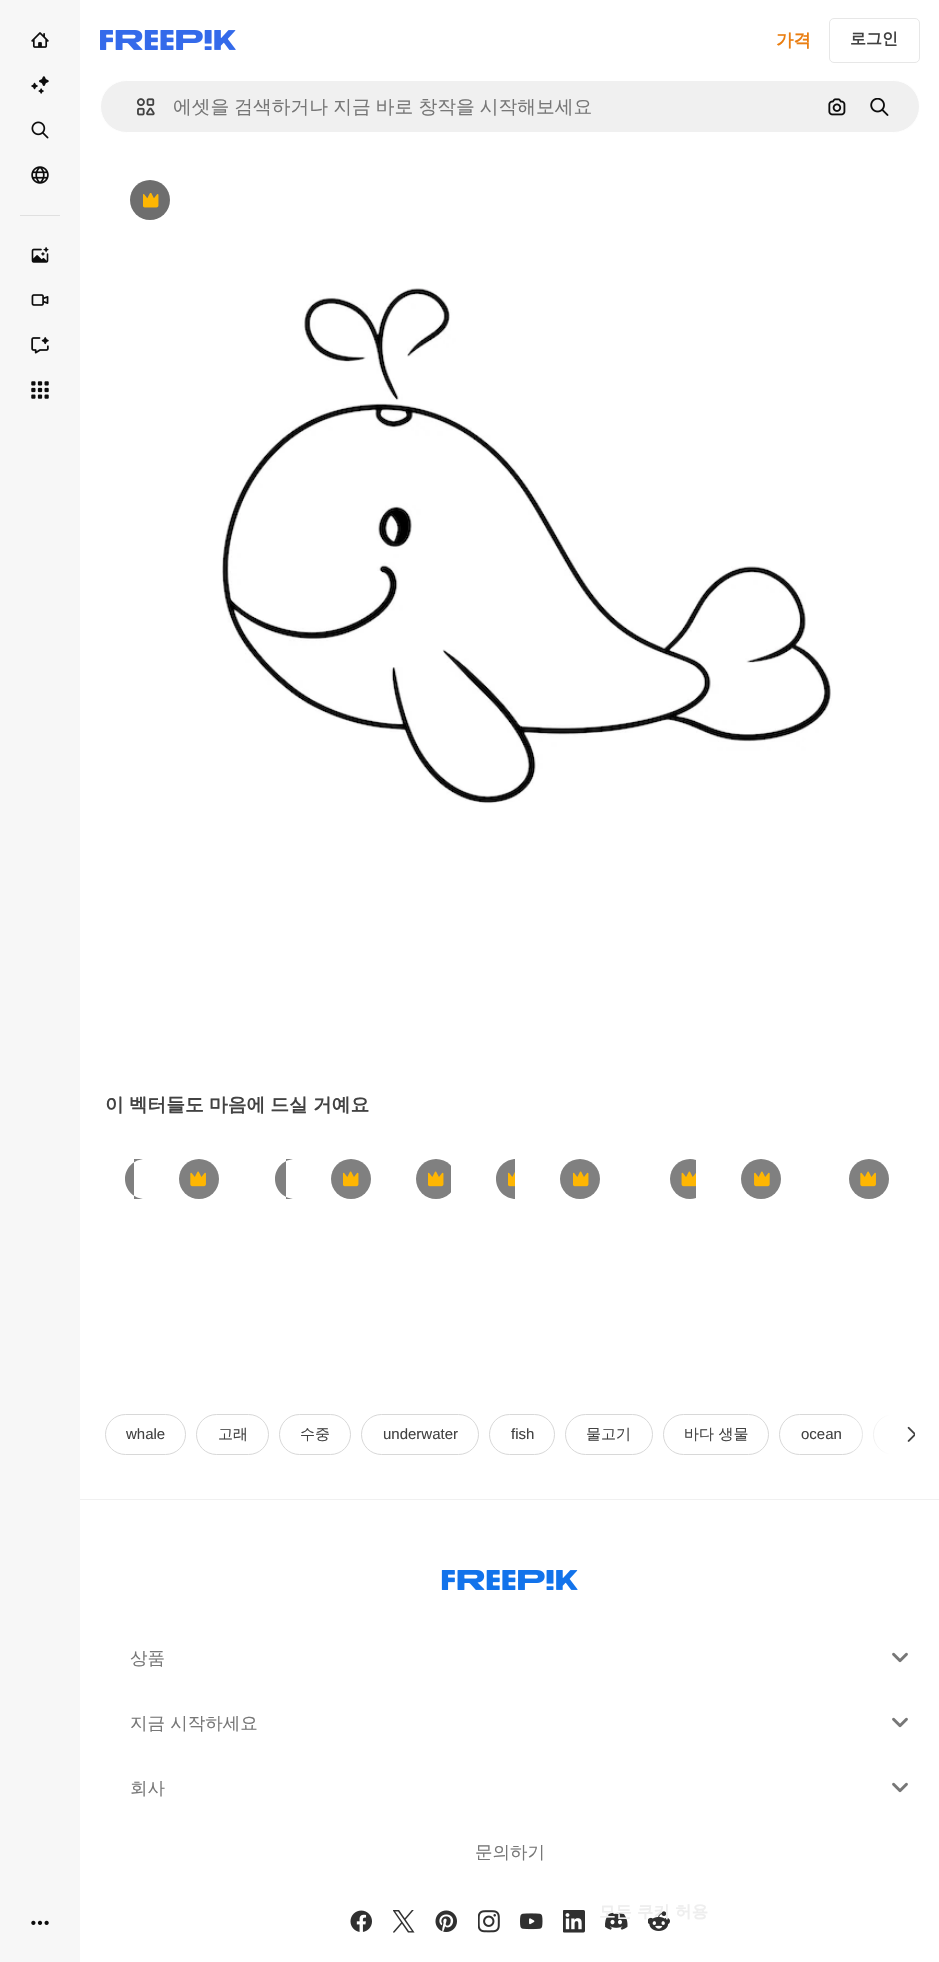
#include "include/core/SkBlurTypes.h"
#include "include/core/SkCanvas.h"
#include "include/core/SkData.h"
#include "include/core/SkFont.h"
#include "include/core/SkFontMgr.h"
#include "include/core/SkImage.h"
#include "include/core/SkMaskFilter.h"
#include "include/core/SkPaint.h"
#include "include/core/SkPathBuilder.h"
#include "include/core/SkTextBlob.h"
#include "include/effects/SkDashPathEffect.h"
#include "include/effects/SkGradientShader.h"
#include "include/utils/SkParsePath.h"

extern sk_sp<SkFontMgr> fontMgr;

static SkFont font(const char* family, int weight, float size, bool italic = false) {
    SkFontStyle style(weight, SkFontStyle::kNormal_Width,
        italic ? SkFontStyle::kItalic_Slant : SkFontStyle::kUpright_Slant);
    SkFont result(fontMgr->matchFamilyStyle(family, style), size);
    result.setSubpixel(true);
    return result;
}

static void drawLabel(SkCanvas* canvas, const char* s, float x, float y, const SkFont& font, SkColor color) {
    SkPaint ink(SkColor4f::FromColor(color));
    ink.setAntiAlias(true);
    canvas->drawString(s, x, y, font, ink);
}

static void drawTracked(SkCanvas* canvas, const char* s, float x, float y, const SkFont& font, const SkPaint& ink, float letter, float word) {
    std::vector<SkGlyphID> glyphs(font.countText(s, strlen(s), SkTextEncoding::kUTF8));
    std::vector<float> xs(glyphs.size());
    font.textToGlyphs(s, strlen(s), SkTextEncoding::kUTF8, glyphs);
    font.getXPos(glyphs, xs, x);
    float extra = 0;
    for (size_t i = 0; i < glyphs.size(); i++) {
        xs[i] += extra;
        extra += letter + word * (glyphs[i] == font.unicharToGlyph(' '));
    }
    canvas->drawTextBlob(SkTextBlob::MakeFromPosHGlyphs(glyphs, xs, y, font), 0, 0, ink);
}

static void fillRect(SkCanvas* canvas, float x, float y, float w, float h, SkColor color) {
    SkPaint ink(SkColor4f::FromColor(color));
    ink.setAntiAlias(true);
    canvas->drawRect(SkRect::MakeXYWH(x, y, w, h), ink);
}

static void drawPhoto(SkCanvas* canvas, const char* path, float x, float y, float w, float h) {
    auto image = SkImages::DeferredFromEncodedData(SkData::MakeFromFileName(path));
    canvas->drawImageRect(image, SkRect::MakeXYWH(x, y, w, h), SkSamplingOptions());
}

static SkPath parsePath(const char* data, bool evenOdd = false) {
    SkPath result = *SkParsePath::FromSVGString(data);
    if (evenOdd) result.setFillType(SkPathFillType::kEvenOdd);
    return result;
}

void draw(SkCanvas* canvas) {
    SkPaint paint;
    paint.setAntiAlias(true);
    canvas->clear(0xFFFFFFFF);
    fillRect(canvas, 0, 0, 80, 1962, 0xFFF7F7F7);
    drawPhoto(canvas, "assets/img1.png", 31, 32, 18, 16);
    drawPhoto(canvas, "assets/img2.png", 31, 76, 18, 18);
    drawPhoto(canvas, "assets/img3.png", 31, 121, 18, 18);
    drawPhoto(canvas, "assets/img4.png", 31, 166, 18, 18);
    fillRect(canvas, 20, 215, 40, 1, 0xFFE0E0E0);
    drawPhoto(canvas, "assets/img5.png", 31, 247, 18, 16);
    drawPhoto(canvas, "assets/img6.png", 31, 294, 18, 12);
    drawPhoto(canvas, "assets/img7.png", 31, 337, 18, 17);
    drawPhoto(canvas, "assets/img8.png", 31, 381, 18, 18);
    drawPhoto(canvas, "assets/img9.png", 31, 1920, 18, 5);
    drawPhoto(canvas, "assets/img10.png", 100, 30, 136, 20);
    SkFont font1 = font("WenQuanYi Zen Hei", 700, 17.5f);
    drawLabel(canvas, "가격", 776, 46, font1, 0xFFEA7E11);
    paint.setStroke(true);
    paint.setStrokeWidth(1);
    paint.setColor(0xFFE7E7E7);
    canvas->drawRoundRect(SkRect::MakeXYWH(829.5f, 18.5f, 90, 44), 4.5f, 4.5f, paint);
    SkFont font2 = font("WenQuanYi Zen Hei", 700, 16);
    drawLabel(canvas, "로그인", 850, 44, font2, 0xFF424242);
    paint.setStroke(false);
    paint.setColor(0xFFF0F0F0);
    canvas->drawRoundRect(SkRect::MakeXYWH(100.5f, 80.5f, 819, 52), 26, 26, paint);
    paint.setStroke(true);
    paint.setColor(0xFFFFFFFF);
    canvas->drawRoundRect(SkRect::MakeXYWH(100.5f, 80.5f, 819, 52), 26, 26, paint);
    drawPhoto(canvas, "assets/img11.png", 136, 98, 19, 18);
    SkFont font3 = font("WenQuanYi Zen Hei", 500, 18.75f);
    paint.setStroke(false);
    paint.setColor(0xFF777777);
    drawTracked(canvas, "에셋을 검색하거나 지금 바로 창작을 시작해보세요", 173, 113, font3, paint, 0, -0.5f);
    drawPhoto(canvas, "assets/img12.png", 828, 98, 18, 18);
    drawPhoto(canvas, "assets/img13.png", 870, 98, 19, 18);
    paint.setColor(0xFF6E6E6E);
    canvas->drawCircle(150, 200, 20, paint);
    drawPhoto(canvas, "assets/img14.png", 143, 193, 16, 15);
    drawPhoto(canvas, "assets/img15.png", 220, 288, 612, 516);
    SkFont font4 = font("WenQuanYi Zen Hei", 700, 18.75f);
    paint.setColor(0xFF424242);
    drawTracked(canvas, "이 벡터들도 마음에 드실 거예요", 105, 1111, font4, paint, 0, -0.5f);
    paint.setColor(0xFF808080);
    canvas->drawPath(parsePath("M145 1159H134V1199H145C134 1199 125 1190 125 1179C125 1168 134 1159 145 1159Z"), paint);
    canvas->drawCircle(199, 1179, 20, paint);
    drawPhoto(canvas, "assets/img16.png", 190, 1171, 16, 16);
    canvas->drawPath(parsePath("M295 1159H286V1199H295C284 1199 275 1190 275 1179C275 1168 284 1159 295 1159Z"), paint);
    canvas->drawCircle(351, 1179, 20, paint);
    drawPhoto(canvas, "assets/img17.png", 343, 1171, 16, 16);
    canvas->save();
    canvas->clipPath(parsePath("M416 1139H431C442 1139 451 1148 451 1159V1369C451 1380 442 1389 431 1389H416C405 1389 396 1380 396 1369V1159C396 1148 405 1139 416 1139Z"), true);
    canvas->drawCircle(436, 1179, 20, paint);
    canvas->restore();
    drawPhoto(canvas, "assets/img17.png", 428, 1171, 16, 16);
    canvas->drawPath(parsePath("M516 1159H515V1199H516C505 1199 496 1190 496 1179C496 1168 505 1159 516 1159Z"), paint);
    drawPhoto(canvas, "assets/img18.png", 508, 1172, 7, 15);
    canvas->drawCircle(580, 1179, 20, paint);
    drawPhoto(canvas, "assets/img17.png", 573, 1171, 16, 16);
    canvas->save();
    canvas->clipPath(parsePath("M670 1139H676C687 1139 696 1148 696 1159V1369C696 1380 687 1389 676 1389H670C659 1389 650 1380 650 1369V1159C650 1148 659 1139 670 1139Z"), true);
    canvas->drawCircle(690, 1179, 20, paint);
    canvas->restore();
    drawPhoto(canvas, "assets/img19.png", 681, 1171, 15, 16);
    canvas->drawCircle(761, 1179, 20, paint);
    drawPhoto(canvas, "assets/img20.png", 754, 1171, 16, 16);
    canvas->drawCircle(869, 1179, 20, paint);
    drawPhoto(canvas, "assets/img16.png", 860, 1171, 16, 16);
    paint.setStroke(true);
    paint.setColor(0xFFD8D8D8);
    canvas->drawRoundRect(SkRect::MakeXYWH(105.5f, 1414.5f, 80, 40), 20, 20, paint);
    SkFont font5 = font("Liberation Sans", 400, 15);
    drawLabel(canvas, "whale", 126, 1439, font5, 0xFF424242);
    canvas->drawRoundRect(SkRect::MakeXYWH(196.5f, 1414.5f, 72, 40), 20, 20, paint);
    SkFont font6 = font("WenQuanYi Zen Hei", 500, 15);
    drawLabel(canvas, "고래", 218, 1439, font6, 0xFF424242);
    canvas->drawRoundRect(SkRect::MakeXYWH(279.5f, 1414.5f, 71, 40), 20, 20, paint);
    drawLabel(canvas, "수중", 300, 1439, font6, 0xFF424242);
    canvas->drawRoundRect(SkRect::MakeXYWH(361.5f, 1414.5f, 117, 40), 20, 20, paint);
    drawLabel(canvas, "underwater", 383, 1439, font5, 0xFF424242);
    canvas->drawRoundRect(SkRect::MakeXYWH(489.5f, 1414.5f, 65, 40), 20, 20, paint);
    drawLabel(canvas, "fish", 511, 1439, font5, 0xFF424242);
    canvas->drawRoundRect(SkRect::MakeXYWH(565.5f, 1414.5f, 87, 40), 20, 20, paint);
    drawLabel(canvas, "물고기", 586, 1439, font6, 0xFF424242);
    canvas->drawRoundRect(SkRect::MakeXYWH(663.5f, 1414.5f, 105, 40), 20, 20, paint);
    drawLabel(canvas, "바다 생물", 684, 1439, font6, 0xFF424242);
    canvas->drawRoundRect(SkRect::MakeXYWH(779.5f, 1414.5f, 83, 40), 20, 20, paint);
    drawLabel(canvas, "ocean", 801, 1439, font5, 0xFF424242);
    canvas->save();
    canvas->clipRect(SkRect::MakeXYWH(105, 1414, 810, 41));
    canvas->drawRoundRect(SkRect::MakeXYWH(873.5f, 1414.5f, 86, 40), 20, 20, paint);
    canvas->restore();
    fillRect(canvas, 890, 1414, 25, 41, 0xFFFFFFFF);
    paint.setStroke(false);
    {
        const SkColor colors[] = {0xFFFFFFFF, 0x00FFFFFF};
        const float stops[] = {0, 1};
        const SkPoint ends[] = {{890, 1434}, {846, 1434}};
        paint.setShader(SkGradientShader::MakeLinear(ends, colors, stops, 2, SkTileMode::kClamp));
        paint.setAlpha(255);
    }
    canvas->drawRect(SkRect::MakeXYWH(850, 1414, 40, 41), paint);
    drawPhoto(canvas, "assets/img21.png", 907, 1426, 8, 16);
    fillRect(canvas, 80, 1499, 859, 1, 0xFFF0F0F0);
    drawPhoto(canvas, "assets/img22.png", 441, 1570, 137, 20);
    SkFont font7 = font("WenQuanYi Zen Hei", 500, 17.5f);
    drawLabel(canvas, "상품", 130, 1664, font7, 0xFF777777);
    drawPhoto(canvas, "assets/img23.png", 892, 1652, 16, 11);
    drawLabel(canvas, "지금 시작하세요", 130, 1729, font7, 0xFF777777);
    drawPhoto(canvas, "assets/img23.png", 892, 1717, 16, 11);
    drawLabel(canvas, "회사", 130, 1794, font7, 0xFF777777);
    drawPhoto(canvas, "assets/img23.png", 892, 1782, 16, 11);
    drawLabel(canvas, "문의하기", 475, 1858, font7, 0xFF777777);
    drawPhoto(canvas, "assets/img24.png", 350, 1910, 22, 22);
    drawPhoto(canvas, "assets/img25.png", 393, 1910, 22, 23);
    drawPhoto(canvas, "assets/img26.png", 435, 1910, 22, 22);
    drawPhoto(canvas, "assets/img27.png", 478, 1910, 22, 23);
    drawPhoto(canvas, "assets/img28.png", 520, 1913, 23, 17);
    drawPhoto(canvas, "assets/img29.png", 563, 1910, 22, 23);
    drawPhoto(canvas, "assets/img30.png", 605, 1912, 23, 18);
    drawPhoto(canvas, "assets/img31.png", 648, 1911, 22, 20);
    SkFont font8 = font("WenQuanYi Zen Hei", 700, 16.25f);
    paint.setShader(nullptr);
    paint.setColor(0xFFEEEEEE);
    drawTracked(canvas, "모든 쿠키 허용", 599, 1917, font8, paint, 0.25f, 0);
}
